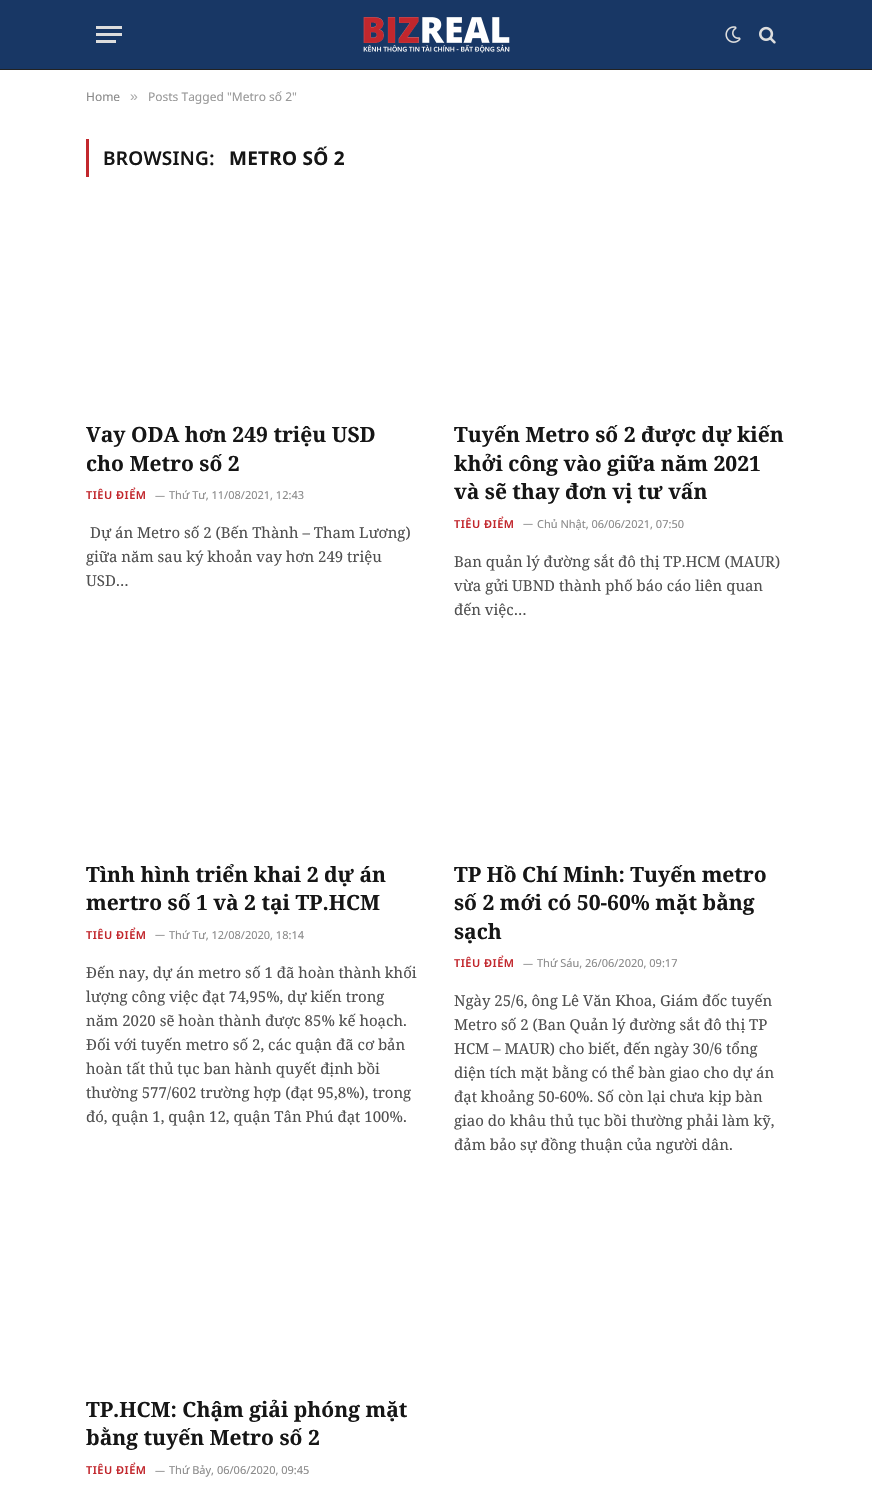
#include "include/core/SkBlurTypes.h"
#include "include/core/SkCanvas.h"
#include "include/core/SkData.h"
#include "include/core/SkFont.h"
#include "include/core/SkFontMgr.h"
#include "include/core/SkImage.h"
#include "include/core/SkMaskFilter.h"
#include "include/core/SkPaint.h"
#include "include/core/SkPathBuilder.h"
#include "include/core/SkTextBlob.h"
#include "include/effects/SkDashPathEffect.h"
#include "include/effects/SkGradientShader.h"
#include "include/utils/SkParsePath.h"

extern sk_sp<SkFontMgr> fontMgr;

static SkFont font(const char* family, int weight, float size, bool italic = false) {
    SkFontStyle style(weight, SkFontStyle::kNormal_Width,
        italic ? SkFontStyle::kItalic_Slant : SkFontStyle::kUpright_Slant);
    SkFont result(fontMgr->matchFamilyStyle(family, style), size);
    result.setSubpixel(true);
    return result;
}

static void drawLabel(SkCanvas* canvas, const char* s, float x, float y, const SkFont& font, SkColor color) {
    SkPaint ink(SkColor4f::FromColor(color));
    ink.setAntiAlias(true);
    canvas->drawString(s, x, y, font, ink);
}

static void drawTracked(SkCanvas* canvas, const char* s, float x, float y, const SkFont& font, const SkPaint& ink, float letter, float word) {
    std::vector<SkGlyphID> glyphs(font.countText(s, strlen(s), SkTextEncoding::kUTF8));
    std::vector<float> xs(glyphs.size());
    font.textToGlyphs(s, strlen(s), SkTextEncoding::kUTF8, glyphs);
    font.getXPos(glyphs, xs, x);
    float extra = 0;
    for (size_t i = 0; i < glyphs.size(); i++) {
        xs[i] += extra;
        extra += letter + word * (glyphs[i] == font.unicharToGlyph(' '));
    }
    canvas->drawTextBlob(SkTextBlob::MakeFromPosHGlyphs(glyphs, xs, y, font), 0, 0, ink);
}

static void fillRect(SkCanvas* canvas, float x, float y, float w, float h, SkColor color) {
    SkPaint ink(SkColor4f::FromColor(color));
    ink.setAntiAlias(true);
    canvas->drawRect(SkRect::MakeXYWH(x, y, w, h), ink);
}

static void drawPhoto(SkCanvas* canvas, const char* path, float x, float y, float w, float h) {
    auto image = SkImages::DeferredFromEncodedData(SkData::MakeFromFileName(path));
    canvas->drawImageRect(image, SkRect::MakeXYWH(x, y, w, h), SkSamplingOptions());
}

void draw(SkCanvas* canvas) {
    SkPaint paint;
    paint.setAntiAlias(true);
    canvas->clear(0xFFFFFFFF);
    fillRect(canvas, 0, 0, 872, 69, 0xFF183765);
    fillRect(canvas, 0, 69, 872, 1, 0xFF222222);
    fillRect(canvas, 96, 40, 20, 3, 0xFFDDDDDD);
    fillRect(canvas, 96, 26, 26, 3, 0xFFDDDDDD);
    fillRect(canvas, 96, 33, 26, 3, 0xFFDDDDDD);
    drawPhoto(canvas, "assets/img1.png", 363, 17, 147, 36);
    drawPhoto(canvas, "assets/img2.png", 725, 26, 16, 17);
    drawPhoto(canvas, "assets/img3.png", 759, 26, 17, 18);
    SkFont font1 = font("Noto Sans", 400, 12);
    drawLabel(canvas, "Home", 86, 101, font1, 0xFF8A8A8A);
    SkFont font2 = font("Liberation Sans", 400, 14);
    drawLabel(canvas, "»", 130, 101, font2, 0xFFADADAD);
    drawLabel(canvas, "Posts Tagged \"Metro số 2\"", 148, 101, font1, 0xFF999999);
    fillRect(canvas, 86, 139, 3, 38, 0xFFC2272D);
    SkFont font3 = font("Noto Sans", 600, 19);
    paint.setColor(0xFF161616);
    drawTracked(canvas, "BROWSING:", 103, 165, font3, paint, 0.25f, 0);
    SkFont font4 = font("Noto Sans", 700, 19);
    drawTracked(canvas, "METRO SỐ 2", 229, 165, font4, paint, 0.25f, 0);
    SkFont font5 = font("Noto Serif", 700, 21);
    drawLabel(canvas, "Vay ODA hơn 249 triệu USD", 86, 442, font5, 0xFF161616);
    drawLabel(canvas, "cho Metro số 2", 86, 471, font5, 0xFF161616);
    SkFont font6 = font("Noto Sans", 600, 11);
    paint.setColor(0xFFC2272D);
    drawTracked(canvas, "TIÊU ĐIỂM", 86, 499, font6, paint, 0.5f, 0);
    SkFont font7 = font("Noto Sans", 400, 10);
    drawLabel(canvas, "—", 155, 499, font7, 0xFF8A8A8A);
    SkFont font8 = font("Noto Sans", 400, 11);
    drawLabel(canvas, "Thứ Tư, 11/08/2021, 12:43", 169, 499, font8, 0xFF8A8A8A);
    SkFont font9 = font("Noto Serif", 400, 15);
    drawLabel(canvas, "Dự án Metro số 2 (Bến Thành – Tham Lương)", 90, 538, font9, 0xFF505050);
    drawLabel(canvas, "giữa năm sau ký khoản vay hơn 249 triệu", 86, 562, font9, 0xFF505050);
    drawLabel(canvas, "USD…", 86, 586, font9, 0xFF505050);
    drawLabel(canvas, "Tuyến Metro số 2 được dự kiến", 454, 442, font5, 0xFF161616);
    drawLabel(canvas, "khởi công vào giữa năm 2021", 454, 471, font5, 0xFF161616);
    drawLabel(canvas, "và sẽ thay đơn vị tư vấn", 454, 499, font5, 0xFF161616);
    drawTracked(canvas, "TIÊU ĐIỂM", 454, 528, font6, paint, 0.5f, 0);
    drawLabel(canvas, "—", 523, 527, font7, 0xFF8A8A8A);
    drawLabel(canvas, "Chủ Nhật, 06/06/2021, 07:50", 537, 528, font8, 0xFF8A8A8A);
    drawLabel(canvas, "Ban quản lý đường sắt đô thị TP.HCM (MAUR)", 454, 567, font9, 0xFF505050);
    drawLabel(canvas, "vừa gửi UBND thành phố báo cáo liên quan", 454, 591, font9, 0xFF505050);
    drawLabel(canvas, "đến việc…", 454, 615, font9, 0xFF505050);
    drawLabel(canvas, "Tình hình triển khai 2 dự án", 86, 882, font5, 0xFF161616);
    drawLabel(canvas, "mertro số 1 và 2 tại TP.HCM", 86, 910, font5, 0xFF161616);
    drawTracked(canvas, "TIÊU ĐIỂM", 86, 939, font6, paint, 0.5f, 0);
    drawLabel(canvas, "—", 155, 938, font7, 0xFF8A8A8A);
    drawLabel(canvas, "Thứ Tư, 12/08/2020, 18:14", 169, 939, font8, 0xFF8A8A8A);
    drawLabel(canvas, "Đến nay, dự án metro số 1 đã hoàn thành khối", 86, 978, font9, 0xFF505050);
    drawLabel(canvas, "lượng công việc đạt 74,95%, dự kiến trong", 86, 1002, font9, 0xFF505050);
    drawLabel(canvas, "năm 2020 sẽ hoàn thành được 85% kế hoạch.", 86, 1026, font9, 0xFF505050);
    drawLabel(canvas, "Đối với tuyến metro số 2, các quận đã cơ bản", 86, 1050, font9, 0xFF505050);
    drawLabel(canvas, "hoàn tất thủ tục ban hành quyết định bồi", 86, 1074, font9, 0xFF505050);
    drawLabel(canvas, "thường 577/602 trường hợp (đạt 95,8%), trong", 86, 1098, font9, 0xFF505050);
    drawLabel(canvas, "đó, quận 1, quận 12, quận Tân Phú đạt 100%.", 86, 1122, font9, 0xFF505050);
    drawLabel(canvas, "TP Hồ Chí Minh: Tuyến metro", 454, 882, font5, 0xFF161616);
    drawLabel(canvas, "số 2 mới có 50-60% mặt bằng", 454, 910, font5, 0xFF161616);
    drawLabel(canvas, "sạch", 454, 939, font5, 0xFF161616);
    drawTracked(canvas, "TIÊU ĐIỂM", 454, 967, font6, paint, 0.5f, 0);
    drawLabel(canvas, "—", 523, 967, font7, 0xFF8A8A8A);
    drawLabel(canvas, "Thứ Sáu, 26/06/2020, 09:17", 537, 967, font8, 0xFF8A8A8A);
    drawLabel(canvas, "Ngày 25/6, ông Lê Văn Khoa, Giám đốc tuyến", 454, 1006, font9, 0xFF505050);
    drawLabel(canvas, "Metro số 2 (Ban Quản lý đường sắt đô thị TP", 454, 1030, font9, 0xFF505050);
    drawLabel(canvas, "HCM – MAUR) cho biết, đến ngày 30/6 tổng", 454, 1054, font9, 0xFF505050);
    drawLabel(canvas, "diện tích mặt bằng có thể bàn giao cho dự án", 454, 1078, font9, 0xFF505050);
    drawLabel(canvas, "đạt khoảng 50-60%. Số còn lại chưa kịp bàn", 454, 1102, font9, 0xFF505050);
    drawLabel(canvas, "giao do khâu thủ tục bồi thường phải làm kỹ,", 454, 1126, font9, 0xFF505050);
    drawLabel(canvas, "đảm bảo sự đồng thuận của người dân.", 454, 1150, font9, 0xFF505050);
    drawLabel(canvas, "TP.HCM: Chậm giải phóng mặt", 86, 1417, font5, 0xFF161616);
    drawLabel(canvas, "bằng tuyến Metro số 2", 86, 1445, font5, 0xFF161616);
    drawTracked(canvas, "TIÊU ĐIỂM", 86, 1474, font6, paint, 0.5f, 0);
    drawLabel(canvas, "—", 155, 1474, font7, 0xFF8A8A8A);
    drawLabel(canvas, "Thứ Bảy, 06/06/2020, 09:45", 169, 1474, font8, 0xFF8A8A8A);
}
